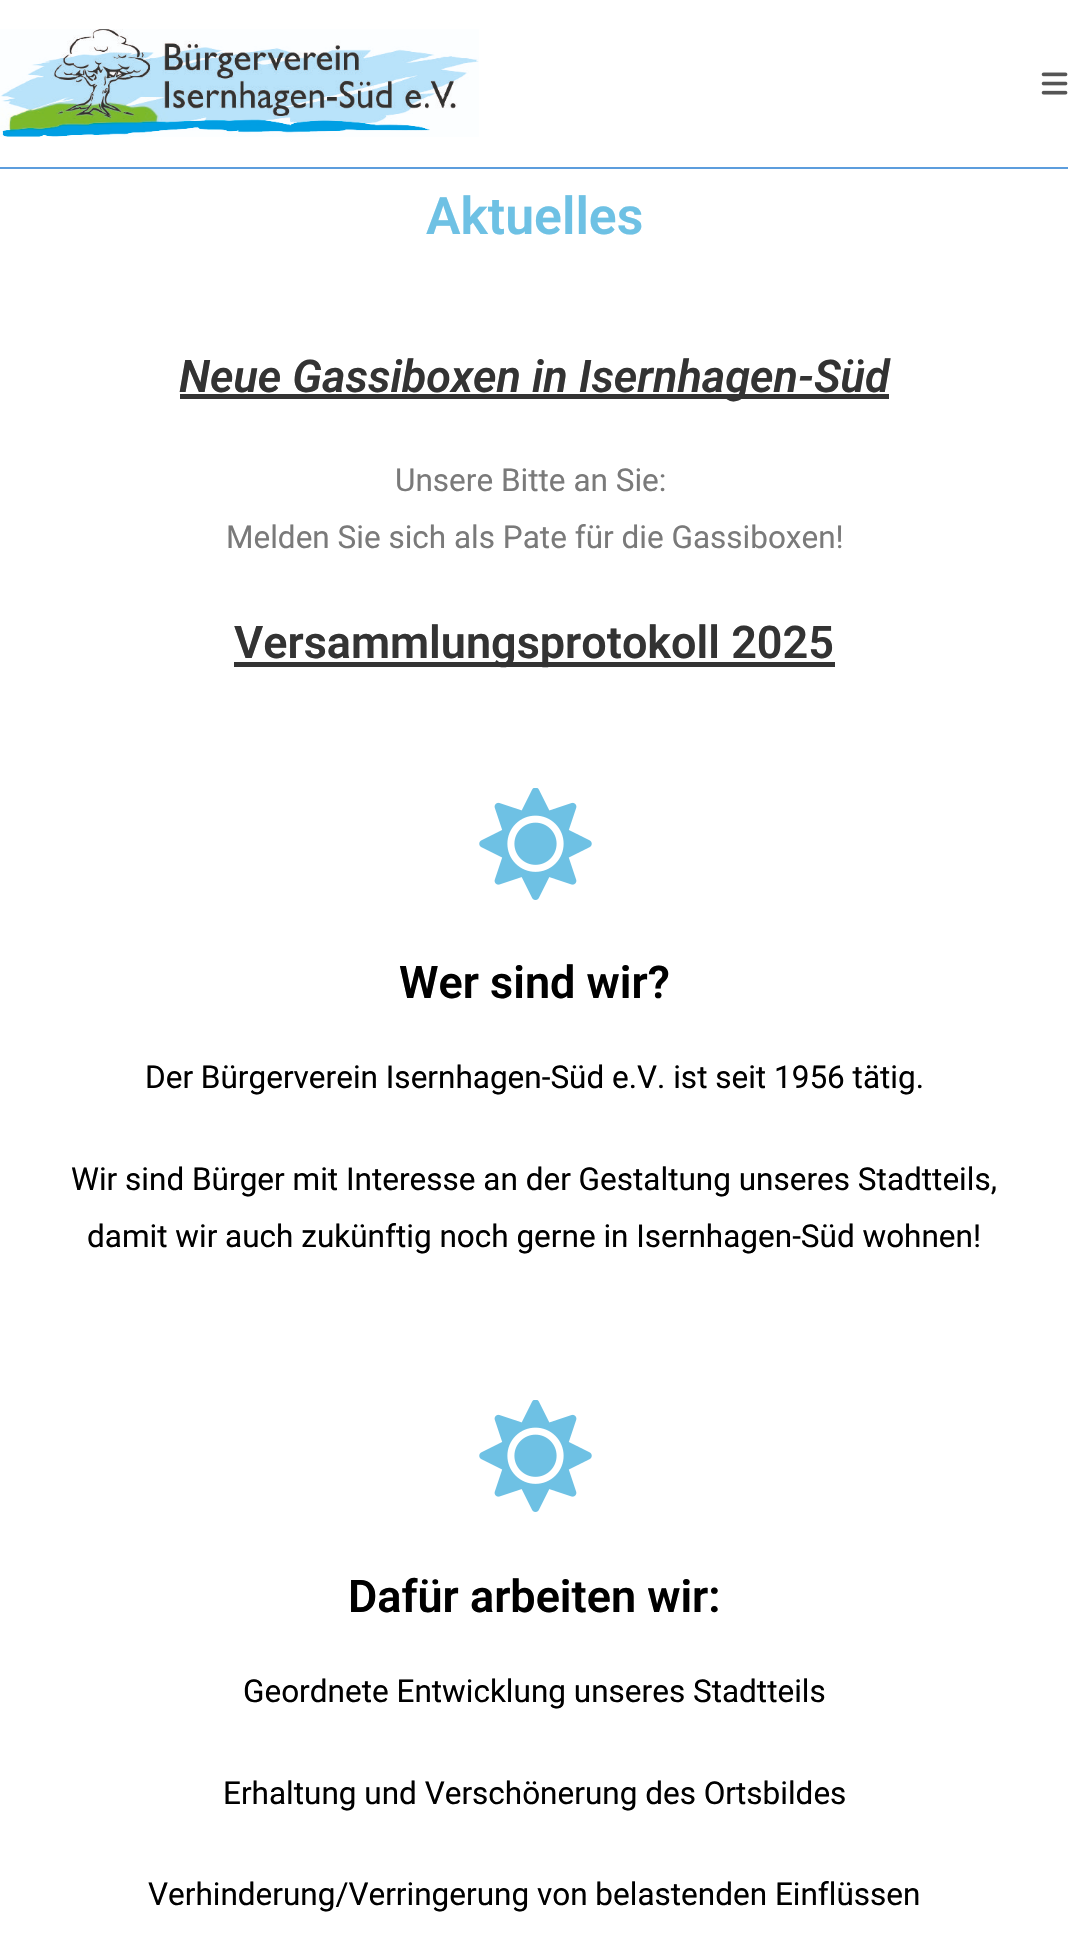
#include "include/core/SkBlurTypes.h"
#include "include/core/SkCanvas.h"
#include "include/core/SkData.h"
#include "include/core/SkFont.h"
#include "include/core/SkFontMgr.h"
#include "include/core/SkImage.h"
#include "include/core/SkMaskFilter.h"
#include "include/core/SkPaint.h"
#include "include/core/SkPathBuilder.h"
#include "include/core/SkTextBlob.h"
#include "include/effects/SkDashPathEffect.h"
#include "include/effects/SkGradientShader.h"
#include "include/utils/SkParsePath.h"

extern sk_sp<SkFontMgr> fontMgr;

static SkFont font(const char* family, int weight, float size, bool italic = false) {
    SkFontStyle style(weight, SkFontStyle::kNormal_Width,
        italic ? SkFontStyle::kItalic_Slant : SkFontStyle::kUpright_Slant);
    SkFont result(fontMgr->matchFamilyStyle(family, style), size);
    result.setSubpixel(true);
    return result;
}

static void drawLabel(SkCanvas* canvas, const char* s, float x, float y, const SkFont& font, SkColor color) {
    SkPaint ink(SkColor4f::FromColor(color));
    ink.setAntiAlias(true);
    canvas->drawString(s, x, y, font, ink);
}

static void fillRect(SkCanvas* canvas, float x, float y, float w, float h, SkColor color) {
    SkPaint ink(SkColor4f::FromColor(color));
    ink.setAntiAlias(true);
    canvas->drawRect(SkRect::MakeXYWH(x, y, w, h), ink);
}

static void drawPhoto(SkCanvas* canvas, const char* path, float x, float y, float w, float h) {
    auto image = SkImages::DeferredFromEncodedData(SkData::MakeFromFileName(path));
    canvas->drawImageRect(image, SkRect::MakeXYWH(x, y, w, h), SkSamplingOptions());
}

void draw(SkCanvas* canvas) {
    SkPaint paint;
    paint.setAntiAlias(true);
    canvas->clear(0xFFFFFFFF);
    fillRect(canvas, 0, 167, 1068, 2, 0xFF5C9DDD);
    drawPhoto(canvas, "assets/img1.png", 0, 29, 479, 108);
    drawPhoto(canvas, "assets/img2.png", 1041, 72, 27, 23);
    SkFont font1 = font("Roboto", 600, 51.75f);
    drawLabel(canvas, "Aktuelles", 426, 234, font1, 0xFF6EC1E4);
    fillRect(canvas, 180, 394, 709, 5, 0xFF333333);
    SkFont font2 = font("Roboto", 600, 45, true);
    drawLabel(canvas, "Neue Gassiboxen in Isernhagen-Süd", 179, 392, font2, 0xFF333333);
    SkFont font3 = font("Roboto", 400, 31.5f);
    drawLabel(canvas, "Unsere Bitte an Sie:", 395, 491, font3, 0xFF7A7A7A);
    drawLabel(canvas, "Melden Sie sich als Pate für die Gassiboxen!", 226, 548, font3, 0xFF7A7A7A);
    fillRect(canvas, 234, 662, 601, 5, 0xFF333333);
    SkFont font4 = font("Roboto", 600, 45);
    drawLabel(canvas, "Versammlungsprotokoll 2025", 234, 658, font4, 0xFF333333);
    drawPhoto(canvas, "assets/img3.png", 479, 788, 113, 112);
    drawLabel(canvas, "Wer sind wir?", 399, 998, font4, 0xFF000000);
    drawLabel(canvas, "Der Bürgerverein Isernhagen-Süd e.V. ist seit 1956 tätig.", 145, 1088, font3, 0xFF000000);
    drawLabel(canvas, "Wir sind Bürger mit Interesse an der Gestaltung unseres Stadtteils,", 71, 1190, font3, 0xFF000000);
    drawLabel(canvas, "damit wir auch zukünftig noch gerne in Isernhagen-Süd wohnen!", 87, 1247, font3, 0xFF000000);
    drawPhoto(canvas, "assets/img3.png", 479, 1400, 113, 112);
    drawLabel(canvas, "Dafür arbeiten wir:", 348, 1612, font4, 0xFF000000);
    drawLabel(canvas, "Geordnete Entwicklung unseres Stadtteils", 243, 1702, font3, 0xFF000000);
    drawLabel(canvas, "Erhaltung und Verschönerung des Ortsbildes", 223, 1804, font3, 0xFF000000);
    drawLabel(canvas, "Verhinderung/Verringerung von belastenden Einflüssen", 148, 1905, font3, 0xFF000000);
}
